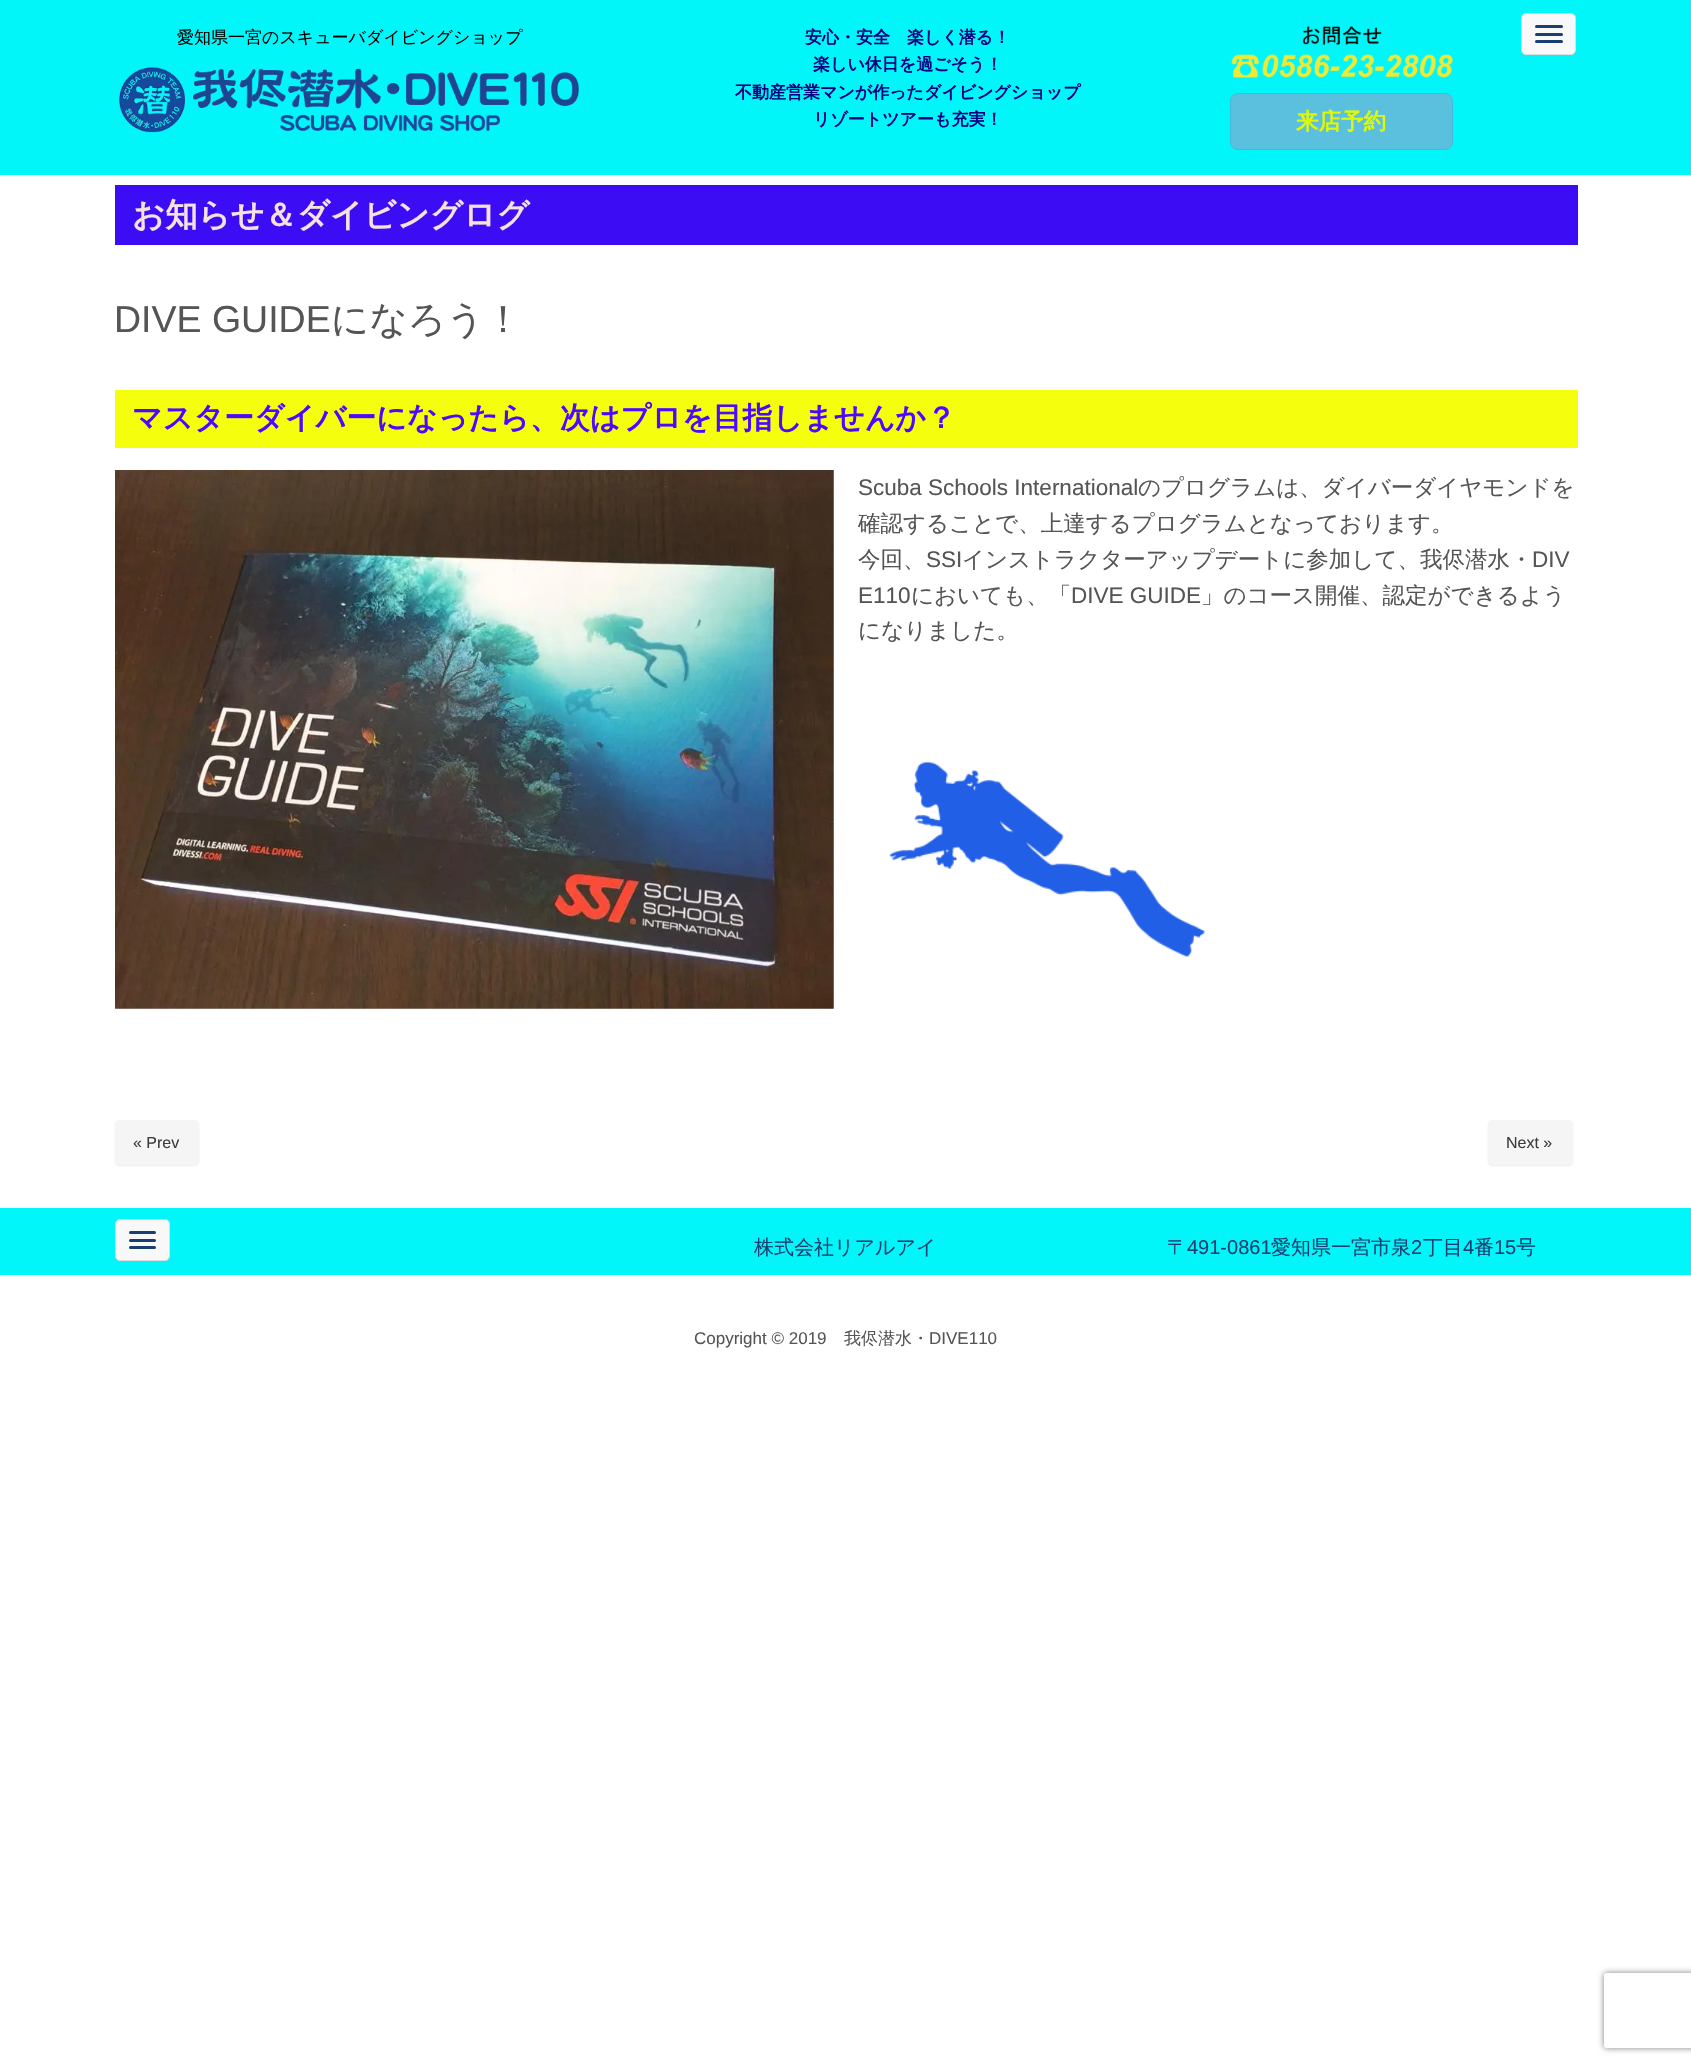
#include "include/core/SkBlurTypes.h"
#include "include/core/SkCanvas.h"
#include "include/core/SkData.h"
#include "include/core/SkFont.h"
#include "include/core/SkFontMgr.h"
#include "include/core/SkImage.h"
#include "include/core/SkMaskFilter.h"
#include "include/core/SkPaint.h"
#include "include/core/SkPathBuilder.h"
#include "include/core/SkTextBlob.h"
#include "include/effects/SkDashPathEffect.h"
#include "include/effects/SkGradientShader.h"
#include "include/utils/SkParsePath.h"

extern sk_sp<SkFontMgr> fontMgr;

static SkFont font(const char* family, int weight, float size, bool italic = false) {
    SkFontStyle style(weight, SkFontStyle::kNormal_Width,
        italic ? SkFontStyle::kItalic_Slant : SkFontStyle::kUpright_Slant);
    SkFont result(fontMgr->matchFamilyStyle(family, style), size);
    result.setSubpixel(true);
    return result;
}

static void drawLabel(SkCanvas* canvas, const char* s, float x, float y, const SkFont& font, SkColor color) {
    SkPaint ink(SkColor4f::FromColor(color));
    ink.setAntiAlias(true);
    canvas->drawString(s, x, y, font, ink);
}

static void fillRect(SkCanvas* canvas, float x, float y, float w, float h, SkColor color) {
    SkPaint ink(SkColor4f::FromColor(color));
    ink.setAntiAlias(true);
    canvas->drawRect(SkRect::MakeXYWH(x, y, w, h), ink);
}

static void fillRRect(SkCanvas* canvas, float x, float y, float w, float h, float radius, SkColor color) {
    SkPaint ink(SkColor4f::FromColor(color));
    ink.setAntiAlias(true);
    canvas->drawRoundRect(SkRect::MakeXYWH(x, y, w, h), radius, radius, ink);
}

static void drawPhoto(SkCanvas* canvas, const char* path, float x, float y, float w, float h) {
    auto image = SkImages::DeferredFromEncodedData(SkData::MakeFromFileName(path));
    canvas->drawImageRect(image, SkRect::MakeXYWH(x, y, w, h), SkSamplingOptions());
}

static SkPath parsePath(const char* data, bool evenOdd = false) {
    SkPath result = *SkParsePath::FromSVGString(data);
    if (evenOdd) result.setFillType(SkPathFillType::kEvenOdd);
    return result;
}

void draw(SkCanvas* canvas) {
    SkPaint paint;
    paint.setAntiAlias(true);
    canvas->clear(0xFFFFFFFF);
    fillRect(canvas, 0, 0, 1691, 175, 0xFF01F6F9);
    SkFont font1 = font("WenQuanYi Zen Hei", 500, 17);
    drawLabel(canvas, "愛知県一宮のスキューバダイビングショップ", 177, 43, font1, 0xFF000000);
    drawPhoto(canvas, "assets/img1.png", 119, 67, 460, 66);
    SkFont font2 = font("WenQuanYi Zen Hei", 700, 17);
    drawLabel(canvas, "安心・安全　楽しく潜る！", 805, 43, font2, 0xFF000080);
    drawLabel(canvas, "楽しい休日を過ごそう！", 813, 70, font2, 0xFF000080);
    drawLabel(canvas, "不動産営業マンが作ったダイビングショップ", 735, 98, font2, 0xFF000080);
    drawLabel(canvas, "リゾートツアーも充実！", 813, 125, font2, 0xFF000080);
    drawPhoto(canvas, "assets/img2.png", 1231, 26, 222, 52);
    paint.setColor(0xFF5BC0DE);
    canvas->drawRoundRect(SkRect::MakeXYWH(1230.5f, 93.5f, 222, 56), 7.5f, 7.5f, paint);
    paint.setStroke(true);
    paint.setStrokeWidth(1);
    paint.setColor(0xFF46B8DA);
    canvas->drawRoundRect(SkRect::MakeXYWH(1230.5f, 93.5f, 222, 56), 7.5f, 7.5f, paint);
    SkFont font3 = font("WenQuanYi Zen Hei", 700, 22.5f);
    drawLabel(canvas, "来店予約", 1296, 129, font3, 0xFFDDF909);
    paint.setStroke(false);
    paint.setColor(0xFFF8F8F8);
    canvas->drawRoundRect(SkRect::MakeXYWH(1521.5f, 13.5f, 54, 41), 4.5f, 4.5f, paint);
    paint.setStroke(true);
    paint.setColor(0xFFDDDDDD);
    canvas->drawRoundRect(SkRect::MakeXYWH(1521.5f, 13.5f, 54, 41), 4.5f, 4.5f, paint);
    fillRRect(canvas, 1535, 25, 28, 3, 1.5f, 0xFF193E72);
    fillRRect(canvas, 1535, 33, 28, 3, 1.5f, 0xFF193E72);
    fillRRect(canvas, 1535, 40, 28, 3, 1.5f, 0xFF193E72);
    fillRect(canvas, 115, 185, 1463, 60, 0xFF3C0CF5);
    SkFont font4 = font("WenQuanYi Zen Hei", 700, 32.5f);
    drawLabel(canvas, "お知らせ＆ダイビングログ", 132, 226, font4, 0xFFF6E1E1);
    SkFont font5 = font("Liberation Sans", 400, 37.5f);
    drawLabel(canvas, "DIVE GUIDE", 114, 332, font5, 0xFF555555);
    SkFont font6 = font("WenQuanYi Zen Hei", 500, 37.5f);
    drawLabel(canvas, "になろう！", 331, 332, font6, 0xFF555555);
    fillRect(canvas, 115, 390, 1463, 58, 0xFFF5FF0D);
    SkFont font7 = font("WenQuanYi Zen Hei", 700, 30);
    drawLabel(canvas, "マスターダイバーになったら、次はプロを目指しませんか？", 132, 428, font7, 0xFF4D09FF);
    drawPhoto(canvas, "assets/img3.png", 115, 470, 719, 539);
    SkFont font8 = font("Liberation Sans", 400, 22.5f);
    drawLabel(canvas, "Scuba Schools International", 858, 495, font8, 0xFF555555);
    SkFont font9 = font("WenQuanYi Zen Hei", 500, 22.5f);
    drawLabel(canvas, "のプログラムは、ダイバーダイヤモンドを", 1138, 495, font9, 0xFF555555);
    drawLabel(canvas, "確認することで、上達するプログラムとなっております。", 858, 531, font9, 0xFF555555);
    drawLabel(canvas, "今回、", 858, 567, font9, 0xFF555555);
    drawLabel(canvas, "SSI", 926, 567, font8, 0xFF555555);
    drawLabel(canvas, "インストラクターアップデートに参加して、我侭潜水・", 962, 567, font9, 0xFF555555);
    drawLabel(canvas, "DIV", 1532, 567, font8, 0xFF555555);
    drawLabel(canvas, "E110", 858, 603, font8, 0xFF555555);
    drawLabel(canvas, "においても、「", 911, 603, font9, 0xFF555555);
    drawLabel(canvas, "DIVE GUIDE", 1071, 603, font8, 0xFF555555);
    drawLabel(canvas, "」のコース開催、認定ができるよう", 1201, 603, font9, 0xFF555555);
    drawLabel(canvas, "になりました。", 858, 638, font9, 0xFF555555);
    drawPhoto(canvas, "assets/img4.png", 889, 761, 317, 196);
    paint.setStroke(false);
    paint.setColor(0x1A323232);
    paint.setMaskFilter(SkMaskFilter::MakeBlur(kNormal_SkBlurStyle, 1));
    canvas->drawRoundRect(SkRect::MakeXYWH(115, 1121, 84, 45), 5, 5, paint);
    paint.setMaskFilter(nullptr);
    fillRRect(canvas, 115, 1120, 84, 45, 5, 0xFFF5F5F5);
    SkFont font10 = font("Liberation Sans", 400, 16);
    drawLabel(canvas, "« Prev", 133, 1148, font10, 0xFF3C3C3C);
    paint.setMaskFilter(SkMaskFilter::MakeBlur(kNormal_SkBlurStyle, 1));
    canvas->drawRoundRect(SkRect::MakeXYWH(1488, 1121, 85, 45), 5, 5, paint);
    paint.setMaskFilter(nullptr);
    fillRRect(canvas, 1488, 1120, 85, 45, 5, 0xFFF5F5F5);
    drawLabel(canvas, "Next »", 1506, 1148, font10, 0xFF3C3C3C);
    fillRect(canvas, 0, 1208, 1691, 67, 0xFF01F6F9);
    paint.setColor(0xFFF8F8F8);
    canvas->drawRoundRect(SkRect::MakeXYWH(115.5f, 1219.5f, 54, 41), 4.5f, 4.5f, paint);
    paint.setStroke(true);
    paint.setColor(0xFFDDDDDD);
    canvas->drawRoundRect(SkRect::MakeXYWH(115.5f, 1219.5f, 54, 41), 4.5f, 4.5f, paint);
    fillRRect(canvas, 129, 1231, 27, 3, 1.5f, 0xFF193E72);
    fillRRect(canvas, 129, 1239, 27, 3, 1.5f, 0xFF193E72);
    fillRRect(canvas, 129, 1246, 27, 3, 1.5f, 0xFF193E72);
    SkFont font11 = font("WenQuanYi Zen Hei", 500, 20);
    drawLabel(canvas, "株式会社リアルアイ", 754, 1254, font11, 0xFF193E72);
    drawLabel(canvas, "〒", 1167, 1254, font11, 0xFF193E72);
    SkFont font12 = font("Liberation Sans", 400, 20);
    drawLabel(canvas, "491-0861", 1187, 1254, font12, 0xFF193E72);
    drawLabel(canvas, "愛知県一宮市泉", 1271, 1254, font11, 0xFF193E72);
    drawLabel(canvas, "2", 1411, 1254, font12, 0xFF193E72);
    drawLabel(canvas, "丁目", 1423, 1254, font11, 0xFF193E72);
    drawLabel(canvas, "4", 1463, 1254, font12, 0xFF193E72);
    drawLabel(canvas, "番", 1474, 1254, font11, 0xFF193E72);
    drawLabel(canvas, "15", 1494, 1254, font12, 0xFF193E72);
    drawLabel(canvas, "号", 1516, 1254, font11, 0xFF193E72);
    SkFont font13 = font("Liberation Sans", 400, 17);
    drawLabel(canvas, "Copyright © 2019", 694, 1344, font13, 0xFF555555);
    drawLabel(canvas, "我侭潜水・", 844, 1344, font1, 0xFF555555);
    drawLabel(canvas, "DIVE110", 929, 1344, font13, 0xFF555555);
    canvas->save();
    canvas->clipPath(parsePath("M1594 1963H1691V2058H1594ZM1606.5 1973H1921.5C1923 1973 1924 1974 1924 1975.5V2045.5C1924 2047 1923 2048 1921.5 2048H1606.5C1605 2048 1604 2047 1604 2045.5V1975.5C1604 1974 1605 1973 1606.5 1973Z", true), true);
    paint.setStroke(false);
    paint.setColor(0xFF808080);
    paint.setMaskFilter(SkMaskFilter::MakeBlur(kNormal_SkBlurStyle, 3));
    canvas->drawRoundRect(SkRect::MakeXYWH(1604, 1973, 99, 75), 2.5f, 2.5f, paint);
    paint.setMaskFilter(nullptr);
    canvas->restore();
}
